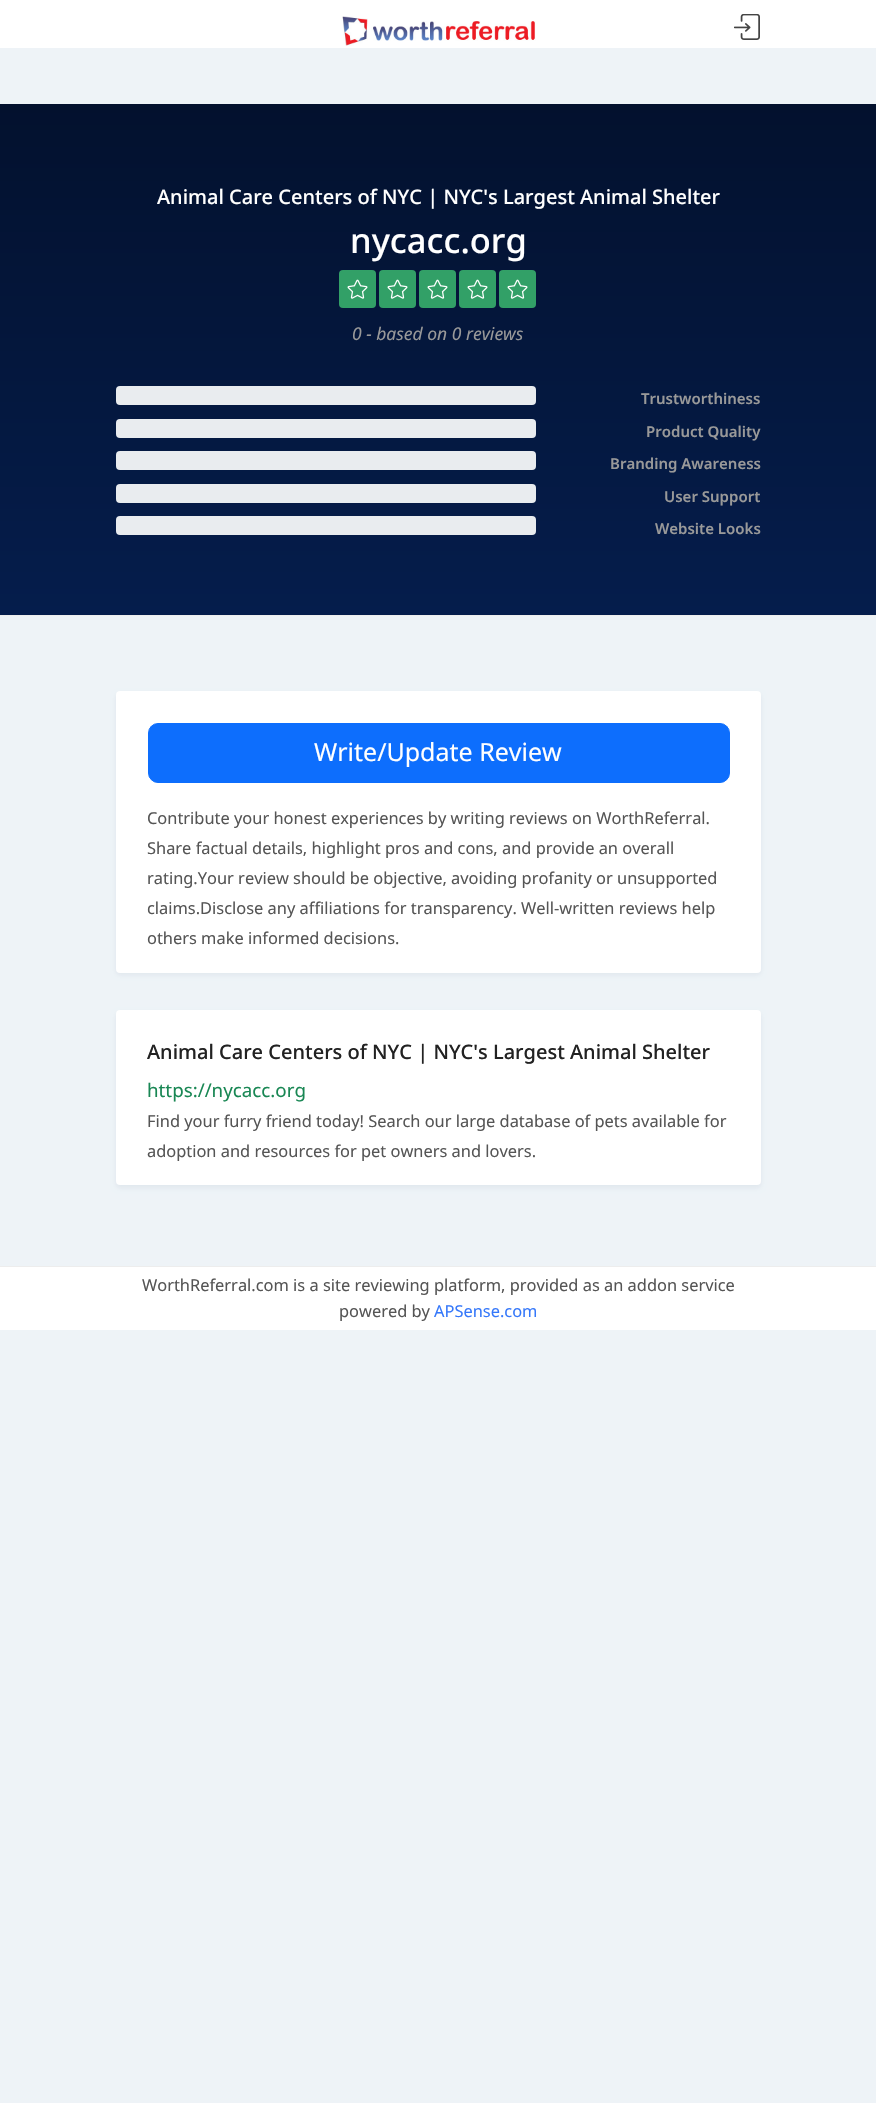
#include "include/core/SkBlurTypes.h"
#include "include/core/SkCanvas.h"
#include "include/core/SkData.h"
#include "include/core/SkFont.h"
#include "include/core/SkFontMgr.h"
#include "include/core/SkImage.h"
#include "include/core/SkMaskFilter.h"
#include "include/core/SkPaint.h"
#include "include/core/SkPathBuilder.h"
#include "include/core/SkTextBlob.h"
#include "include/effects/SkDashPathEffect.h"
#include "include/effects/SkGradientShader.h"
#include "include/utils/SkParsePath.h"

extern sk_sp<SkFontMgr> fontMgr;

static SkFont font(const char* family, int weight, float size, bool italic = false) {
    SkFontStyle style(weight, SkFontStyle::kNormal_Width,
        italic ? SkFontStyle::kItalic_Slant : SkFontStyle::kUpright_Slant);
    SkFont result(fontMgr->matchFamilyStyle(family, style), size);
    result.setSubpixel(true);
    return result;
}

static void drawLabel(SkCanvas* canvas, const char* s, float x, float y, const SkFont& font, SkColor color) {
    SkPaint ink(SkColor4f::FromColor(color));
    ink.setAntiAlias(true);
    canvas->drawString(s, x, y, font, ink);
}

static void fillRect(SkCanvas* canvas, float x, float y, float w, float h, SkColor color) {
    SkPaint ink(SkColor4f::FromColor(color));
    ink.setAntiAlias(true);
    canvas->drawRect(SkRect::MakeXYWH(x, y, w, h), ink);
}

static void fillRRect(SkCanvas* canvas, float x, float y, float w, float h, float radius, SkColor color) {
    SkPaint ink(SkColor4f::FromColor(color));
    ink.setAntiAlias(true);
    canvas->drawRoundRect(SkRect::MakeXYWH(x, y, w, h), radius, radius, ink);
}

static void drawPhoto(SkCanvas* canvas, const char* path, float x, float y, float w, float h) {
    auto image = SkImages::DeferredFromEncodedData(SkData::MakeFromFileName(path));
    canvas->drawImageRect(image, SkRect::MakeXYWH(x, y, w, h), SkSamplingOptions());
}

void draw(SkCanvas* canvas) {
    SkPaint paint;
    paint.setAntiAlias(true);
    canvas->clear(0xFFEEF3F7);
    fillRect(canvas, 0, 0, 876, 48, 0xFFFFFFFF);
    drawPhoto(canvas, "assets/img1.png", 342, 16, 194, 30);
    drawPhoto(canvas, "assets/img2.png", 734, 14, 26, 26);
    fillRect(canvas, 0, 615, 876, 1, 0xFFEDEDED);
    {
        const SkColor colors[] = {0xFF03112E, 0xFF051D4C};
        const float stops[] = {0, 1};
        const SkPoint ends[] = {{438, 104}, {438, 615}};
        paint.setShader(SkGradientShader::MakeLinear(ends, colors, stops, 2, SkTileMode::kClamp));
        paint.setAlpha(255);
    }
    canvas->drawRect(SkRect::MakeXYWH(0, 104, 876, 511), paint);
    SkFont font1 = font("Noto Sans", 500, 20);
    drawLabel(canvas, "Animal Care Centers of NYC | NYC's Largest Animal Shelter", 157, 204, font1, 0xFFFFFFFF);
    SkFont font2 = font("Noto Sans", 500, 34.5f);
    drawLabel(canvas, "nycacc.org", 350, 253, font2, 0xFFFFFFFF);
    fillRRect(canvas, 339, 270, 37, 38, 4, 0xFF32A067);
    drawPhoto(canvas, "assets/img3.png", 347, 279, 21, 20);
    fillRRect(canvas, 379, 270, 37, 38, 4, 0xFF32A067);
    drawPhoto(canvas, "assets/img3.png", 387, 279, 21, 20);
    fillRRect(canvas, 419, 270, 37, 38, 4, 0xFF32A067);
    drawPhoto(canvas, "assets/img3.png", 427, 279, 21, 20);
    fillRRect(canvas, 459, 270, 37, 38, 4, 0xFF32A067);
    drawPhoto(canvas, "assets/img3.png", 467, 279, 21, 20);
    fillRRect(canvas, 499, 270, 37, 38, 4, 0xFF32A067);
    drawPhoto(canvas, "assets/img3.png", 507, 279, 21, 20);
    SkFont font3 = font("Noto Sans", 400, 17.5f, true);
    drawLabel(canvas, "0 - based on 0 reviews", 352, 340, font3, 0xFF999999);
    fillRRect(canvas, 116, 386, 420, 19, 4, 0xFFE9ECEF);
    SkFont font4 = font("Noto Sans", 600, 15);
    drawLabel(canvas, "Trustworthiness", 641, 404, font4, 0xFF999999);
    fillRRect(canvas, 116, 419, 420, 19, 4, 0xFFE9ECEF);
    drawLabel(canvas, "Product Quality", 646, 437, font4, 0xFF999999);
    fillRRect(canvas, 116, 451, 420, 19, 4, 0xFFE9ECEF);
    drawLabel(canvas, "Branding Awareness", 610, 469, font4, 0xFF999999);
    fillRRect(canvas, 116, 484, 420, 19, 4, 0xFFE9ECEF);
    drawLabel(canvas, "User Support", 664, 502, font4, 0xFF999999);
    fillRRect(canvas, 116, 516, 420, 19, 4, 0xFFE9ECEF);
    drawLabel(canvas, "Website Looks", 655, 534, font4, 0xFF999999);
    paint.setShader(nullptr);
    paint.setColor(0x0F031B4E);
    paint.setMaskFilter(SkMaskFilter::MakeBlur(kNormal_SkBlurStyle, 2.5f));
    canvas->drawRoundRect(SkRect::MakeXYWH(116, 694, 645, 281), 4, 4, paint);
    paint.setMaskFilter(nullptr);
    fillRRect(canvas, 116, 691, 645, 282, 4, 0xFFFFFFFF);
    paint.setColor(0xFF0D6EFD);
    canvas->drawRoundRect(SkRect::MakeXYWH(148.5f, 723.5f, 581, 59), 9.5f, 9.5f, paint);
    paint.setStroke(true);
    paint.setStrokeWidth(1);
    canvas->drawRoundRect(SkRect::MakeXYWH(148.5f, 723.5f, 581, 59), 9.5f, 9.5f, paint);
    SkFont font5 = font("Noto Sans", 400, 25);
    drawLabel(canvas, "Write/Update Review", 314, 761, font5, 0xFFFFFFFF);
    SkFont font6 = font("Noto Sans", 400, 16.4f);
    drawLabel(canvas, "Contribute your honest experiences by writing reviews on WorthReferral.", 147, 824, font6, 0xFF555555);
    drawLabel(canvas, "Share factual details, highlight pros and cons, and provide an overall", 147, 854, font6, 0xFF555555);
    drawLabel(canvas, "rating.Your review should be objective, avoiding profanity or unsupported", 147, 884, font6, 0xFF555555);
    drawLabel(canvas, "claims.Disclose any affiliations for transparency. Well-written reviews help", 147, 914, font6, 0xFF555555);
    drawLabel(canvas, "others make informed decisions.", 147, 944, font6, 0xFF555555);
    paint.setStroke(false);
    paint.setColor(0x0F031B4E);
    paint.setMaskFilter(SkMaskFilter::MakeBlur(kNormal_SkBlurStyle, 2.5f));
    canvas->drawRoundRect(SkRect::MakeXYWH(116, 1013, 645, 175), 4, 4, paint);
    paint.setMaskFilter(nullptr);
    fillRRect(canvas, 116, 1010, 645, 175, 4, 0xFFFFFFFF);
    drawLabel(canvas, "Animal Care Centers of NYC | NYC's Largest Animal Shelter", 147, 1059, font1, 0xFF222222);
    SkFont font7 = font("Noto Sans", 400, 18.75f);
    drawLabel(canvas, "https://nycacc.org", 147, 1097, font7, 0xFF198754);
    drawLabel(canvas, "Find your furry friend today! Search our large database of pets available for", 147, 1127, font6, 0xFF555555);
    drawLabel(canvas, "adoption and resources for pet owners and lovers.", 147, 1157, font6, 0xFF555555);
    fillRect(canvas, 0, 1267, 876, 63, 0xFFFFFFFF);
    fillRect(canvas, 0, 1266, 876, 1, 0xFFEDEDED);
    drawLabel(canvas, "WorthReferral.com is a site reviewing platform, provided as an addon service", 142, 1291, font6, 0xFF555555);
    drawLabel(canvas, "powered by", 339, 1317, font6, 0xFF555555);
    drawLabel(canvas, "APSense.com", 434, 1317, font6, 0xFF3578FA);
}
